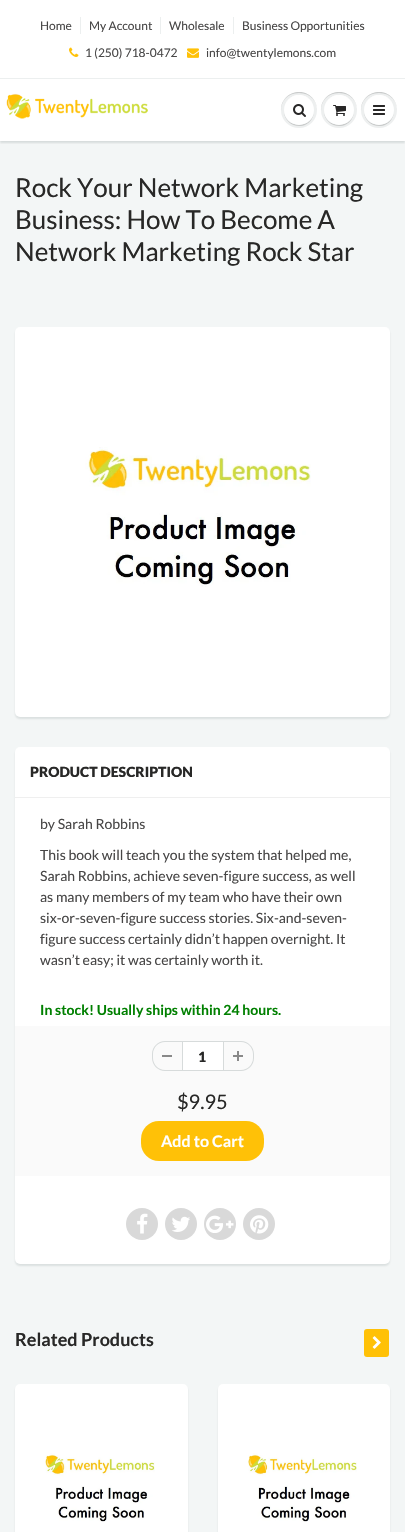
#include "include/core/SkBlurTypes.h"
#include "include/core/SkCanvas.h"
#include "include/core/SkData.h"
#include "include/core/SkFont.h"
#include "include/core/SkFontMgr.h"
#include "include/core/SkImage.h"
#include "include/core/SkMaskFilter.h"
#include "include/core/SkPaint.h"
#include "include/core/SkPathBuilder.h"
#include "include/core/SkTextBlob.h"
#include "include/effects/SkDashPathEffect.h"
#include "include/effects/SkGradientShader.h"
#include "include/utils/SkParsePath.h"

extern sk_sp<SkFontMgr> fontMgr;

static SkFont font(const char* family, int weight, float size, bool italic = false) {
    SkFontStyle style(weight, SkFontStyle::kNormal_Width,
        italic ? SkFontStyle::kItalic_Slant : SkFontStyle::kUpright_Slant);
    SkFont result(fontMgr->matchFamilyStyle(family, style), size);
    result.setSubpixel(true);
    return result;
}

static void drawLabel(SkCanvas* canvas, const char* s, float x, float y, const SkFont& font, SkColor color) {
    SkPaint ink(SkColor4f::FromColor(color));
    ink.setAntiAlias(true);
    canvas->drawString(s, x, y, font, ink);
}

static void fillRect(SkCanvas* canvas, float x, float y, float w, float h, SkColor color) {
    SkPaint ink(SkColor4f::FromColor(color));
    ink.setAntiAlias(true);
    canvas->drawRect(SkRect::MakeXYWH(x, y, w, h), ink);
}

static void fillRRect(SkCanvas* canvas, float x, float y, float w, float h, float radius, SkColor color) {
    SkPaint ink(SkColor4f::FromColor(color));
    ink.setAntiAlias(true);
    canvas->drawRoundRect(SkRect::MakeXYWH(x, y, w, h), radius, radius, ink);
}

static void drawPhoto(SkCanvas* canvas, const char* path, float x, float y, float w, float h) {
    auto image = SkImages::DeferredFromEncodedData(SkData::MakeFromFileName(path));
    canvas->drawImageRect(image, SkRect::MakeXYWH(x, y, w, h), SkSamplingOptions());
}

static SkPath parsePath(const char* data, bool evenOdd = false) {
    SkPath result = *SkParsePath::FromSVGString(data);
    if (evenOdd) result.setFillType(SkPathFillType::kEvenOdd);
    return result;
}

void draw(SkCanvas* canvas) {
    SkPaint paint;
    paint.setAntiAlias(true);
    canvas->clear(0xFFFFFFFF);
    SkFont font1 = font("Lato", 400, 12);
    drawLabel(canvas, "Home", 40, 30, font1, 0xFF474646);
    fillRect(canvas, 80, 17, 1, 17, 0xFFECEFEF);
    drawLabel(canvas, "My Account", 89, 30, font1, 0xFF474646);
    fillRect(canvas, 160, 17, 1, 17, 0xFFECEFEF);
    drawLabel(canvas, "Wholesale", 169, 30, font1, 0xFF474646);
    fillRect(canvas, 233, 17, 1, 17, 0xFFECEFEF);
    drawLabel(canvas, "Business Opportunities", 242, 30, font1, 0xFF474646);
    drawPhoto(canvas, "assets/img1.png", 69, 47, 10, 10);
    drawLabel(canvas, "1 (250) 718-0472", 85, 57, font1, 0xFF474646);
    drawPhoto(canvas, "assets/img2.png", 187, 48, 12, 10);
    drawLabel(canvas, "info@twentylemons.com", 206, 57, font1, 0xFF474646);
    fillRect(canvas, 0, 141, 405, 1391, 0xFFF3F6F6);
    canvas->save();
    canvas->clipRect(SkRect::MakeXYWH(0, 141, 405, 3));
    paint.setColor(0x1F0B191C);
    paint.setMaskFilter(SkMaskFilter::MakeBlur(kNormal_SkBlurStyle, 1));
    canvas->drawRect(SkRect::MakeXYWH(0, 80, 405, 63), paint);
    paint.setMaskFilter(nullptr);
    canvas->restore();
    fillRect(canvas, 0, 78, 405, 1, 0xFFECEFEF);
    drawPhoto(canvas, "assets/img3.png", 6, 93, 142, 26);
    paint.setColor(0xFFEDEFEF);
    canvas->drawCircle(299, 110, 18, paint);
    paint.setColor(0xFFC9CBCB);
    canvas->drawPath(parsePath("M299 93C311 93 317 101.5 317 110.5C317 107 316 103 314 100C304 85 280.5 92.5 281 110.5C281 101.5 287 93 299 93Z"), paint);
    canvas->drawPath(parsePath("M284 110.5C283.5 125.5 303 132 311.5 119.5C313 117 314 113.5 314 110.5C313.5 129.5 284.5 129.5 284 110.5Z"), paint);
    paint.setColor(0xFFFFFFFF);
    canvas->drawCircle(299, 110, 15, paint);
    canvas->drawPath(parsePath("M299 96C309 96 314 103 314 110.5C314 107.5 313 104 311.5 101.5C303 89 283.5 95.5 284 110.5C284 103 289 96 299 96Z"), paint);
    drawPhoto(canvas, "assets/img4.png", 293, 104, 13, 13);
    paint.setColor(0xFFEDEFEF);
    canvas->drawCircle(339, 110, 18, paint);
    paint.setColor(0xFFC9CBCB);
    canvas->drawPath(parsePath("M339 93C351 93 357 101.5 357 110.5C357 107 356 103 354 100C344 85 320.5 92.5 321 110.5C321 101.5 327 93 339 93Z"), paint);
    canvas->drawPath(parsePath("M324 110.5C323.5 125.5 343 132 351.5 119.5C353 117 354 113.5 354 110.5C353.5 129.5 324.5 129.5 324 110.5Z"), paint);
    paint.setColor(0xFFFFFFFF);
    canvas->drawCircle(339, 110, 15, paint);
    canvas->drawPath(parsePath("M339 96C349 96 354 103 354 110.5C354 107.5 353 104 351.5 101.5C343 89 323.5 95.5 324 110.5C324 103 329 96 339 96Z"), paint);
    drawPhoto(canvas, "assets/img5.png", 333, 105, 13, 11);
    paint.setColor(0xFFEDEFEF);
    canvas->drawCircle(379, 110, 18, paint);
    paint.setColor(0xFFC9CBCB);
    canvas->drawPath(parsePath("M379 93C391 93 397 101.5 397 110.5C397 107 396 103 394 100C384 85 360.5 92.5 361 110.5C361 101.5 367 93 379 93Z"), paint);
    canvas->drawPath(parsePath("M364 110.5C363.5 125.5 383 132 391.5 119.5C393 117 394 113.5 394 110.5C393.5 129.5 364.5 129.5 364 110.5Z"), paint);
    paint.setColor(0xFFFFFFFF);
    canvas->drawCircle(379, 110, 15, paint);
    canvas->drawPath(parsePath("M379 96C389 96 394 103 394 110.5C394 107.5 393 104 391.5 101.5C383 89 363.5 95.5 364 110.5C364 103 369 96 379 96Z"), paint);
    drawPhoto(canvas, "assets/img6.png", 373, 105, 12, 10);
    SkFont font2 = font("Lato", 400, 26);
    drawLabel(canvas, "Rock Your Network Marketing", 15, 197, font2, 0xFF282827);
    drawLabel(canvas, "Business: How To Become A", 15, 229, font2, 0xFF282827);
    drawLabel(canvas, "Network Marketing Rock Star", 15, 261, font2, 0xFF282827);
    paint.setColor(0x1A0B191C);
    paint.setMaskFilter(SkMaskFilter::MakeBlur(kNormal_SkBlurStyle, 1));
    canvas->drawRoundRect(SkRect::MakeXYWH(15, 329, 375, 390), 5, 5, paint);
    paint.setMaskFilter(nullptr);
    fillRRect(canvas, 15, 327, 375, 390, 5, 0xFFFFFFFF);
    drawPhoto(canvas, "assets/img7.png", 85, 447, 226, 140);
    paint.setMaskFilter(SkMaskFilter::MakeBlur(kNormal_SkBlurStyle, 1));
    canvas->drawRoundRect(SkRect::MakeXYWH(15, 749, 375, 517), 5, 5, paint);
    paint.setMaskFilter(nullptr);
    fillRRect(canvas, 15, 747, 375, 517, 5, 0xFFFFFFFF);
    fillRect(canvas, 15, 797, 375, 1, 0xFFEFEFEF);
    SkFont font3 = font("Lato", 900, 14);
    drawLabel(canvas, "PRODUCT DESCRIPTION", 30, 777, font3, 0xFF282827);
    SkFont font4 = font("Lato", 400, 14);
    drawLabel(canvas, "by Sarah Robbins", 40, 829, font4, 0xFF474646);
    drawLabel(canvas, "This book will teach you the system that helped me,", 40, 860, font4, 0xFF474646);
    drawLabel(canvas, "Sarah Robbins, achieve seven-figure success, as well", 40, 881, font4, 0xFF474646);
    drawLabel(canvas, "as many members of my team who have their own", 40, 902, font4, 0xFF474646);
    drawLabel(canvas, "six-or-seven-figure success stories. Six-and-seven-", 40, 923, font4, 0xFF474646);
    drawLabel(canvas, "figure success certainly didn’t happen overnight. It", 40, 944, font4, 0xFF474646);
    drawLabel(canvas, "wasn’t easy; it was certainly worth it.", 40, 965, font4, 0xFF474646);
    SkFont font5 = font("Lato", 700, 14);
    drawLabel(canvas, "In stock! Usually ships within 24 hours.", 40, 1015, font5, 0xFF008000);
    fillRect(canvas, 15, 1026, 375, 150, 0xFFFAFAFA);
    fillRect(canvas, 162, 1055, 10, 2, 0xFF898989);
    paint.setColor(0xFFD7DBDB);
    canvas->drawPath(parsePath("M165 1041H182V1071H165C158 1071 152 1065 152 1058V1054C152 1047 158 1041 165 1041ZM165 1042H182V1070H165C158.5 1070 153 1064.5 153 1058V1054C153 1047.5 158.5 1042 165 1042Z", true), paint);
    paint.setColor(0xFFFFFFFF);
    canvas->drawRect(SkRect::MakeXYWH(182.5f, 1041.5f, 41, 29), paint);
    paint.setStroke(true);
    paint.setStrokeWidth(1);
    paint.setColor(0xFFD7DBDB);
    canvas->drawRect(SkRect::MakeXYWH(182.5f, 1041.5f, 41, 29), paint);
    drawLabel(canvas, "1", 198, 1062, font3, 0xFF282827);
    drawPhoto(canvas, "assets/img8.png", 233, 1051, 10, 10);
    paint.setStroke(false);
    canvas->drawPath(parsePath("M224 1041H241C248 1041 254 1047 254 1054V1058C254 1065 248 1071 241 1071H224ZM224 1042H241C247.5 1042 253 1047.5 253 1054V1058C253 1064.5 247.5 1070 241 1070H224Z", true), paint);
    SkFont font6 = font("Lato", 400, 20);
    drawLabel(canvas, "$9.95", 177, 1109, font6, 0xFF282827);
    fillRRect(canvas, 141, 1121, 123, 40, 18, 0xFFFFC107);
    SkFont font7 = font("Lato", 700, 16);
    drawLabel(canvas, "Add to Cart", 161, 1147, font7, 0xFFFFFFFF);
    paint.setColor(0xFFD9D9D9);
    canvas->drawCircle(142, 1224, 16, paint);
    drawPhoto(canvas, "assets/img9.png", 137, 1213, 11, 21);
    canvas->drawCircle(181, 1224, 16, paint);
    drawPhoto(canvas, "assets/img10.png", 172, 1216, 18, 16);
    canvas->drawCircle(220, 1224, 16, paint);
    drawPhoto(canvas, "assets/img11.png", 206, 1215, 28, 18);
    canvas->drawCircle(259, 1224, 16, paint);
    drawPhoto(canvas, "assets/img12.png", 250, 1215, 19, 19);
    fillRRect(canvas, 364, 1329, 25, 28, 3, 0xFFFFC107);
    drawPhoto(canvas, "assets/img13.png", 372, 1336, 9, 13);
    paint.setColor(0x1A0B191C);
    paint.setMaskFilter(SkMaskFilter::MakeBlur(kNormal_SkBlurStyle, 1));
    canvas->drawRoundRect(SkRect::MakeXYWH(15, 1386, 173, 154), 5, 5, paint);
    paint.setMaskFilter(nullptr);
    paint.setColor(0xFFFFFFFF);
    canvas->drawRoundRect(SkRect::MakeXYWH(17.5f, 1386.5f, 168, 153), 2.5f, 2.5f, paint);
    paint.setStroke(true);
    paint.setStrokeWidth(5);
    canvas->drawRoundRect(SkRect::MakeXYWH(17.5f, 1386.5f, 168, 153), 2.5f, 2.5f, paint);
    drawPhoto(canvas, "assets/img14.png", 45, 1453, 110, 69);
    paint.setStroke(false);
    paint.setColor(0x1A0B191C);
    paint.setMaskFilter(SkMaskFilter::MakeBlur(kNormal_SkBlurStyle, 1));
    canvas->drawRoundRect(SkRect::MakeXYWH(218, 1386, 172, 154), 5, 5, paint);
    paint.setMaskFilter(nullptr);
    paint.setColor(0xFFFFFFFF);
    canvas->drawRoundRect(SkRect::MakeXYWH(220.5f, 1386.5f, 167, 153), 2.5f, 2.5f, paint);
    paint.setStroke(true);
    canvas->drawRoundRect(SkRect::MakeXYWH(220.5f, 1386.5f, 167, 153), 2.5f, 2.5f, paint);
    drawPhoto(canvas, "assets/img15.png", 248, 1453, 109, 69);
    SkFont font8 = font("Lato", 700, 18);
    drawLabel(canvas, "Related Products", 15, 1346, font8, 0xFF282827);
}
